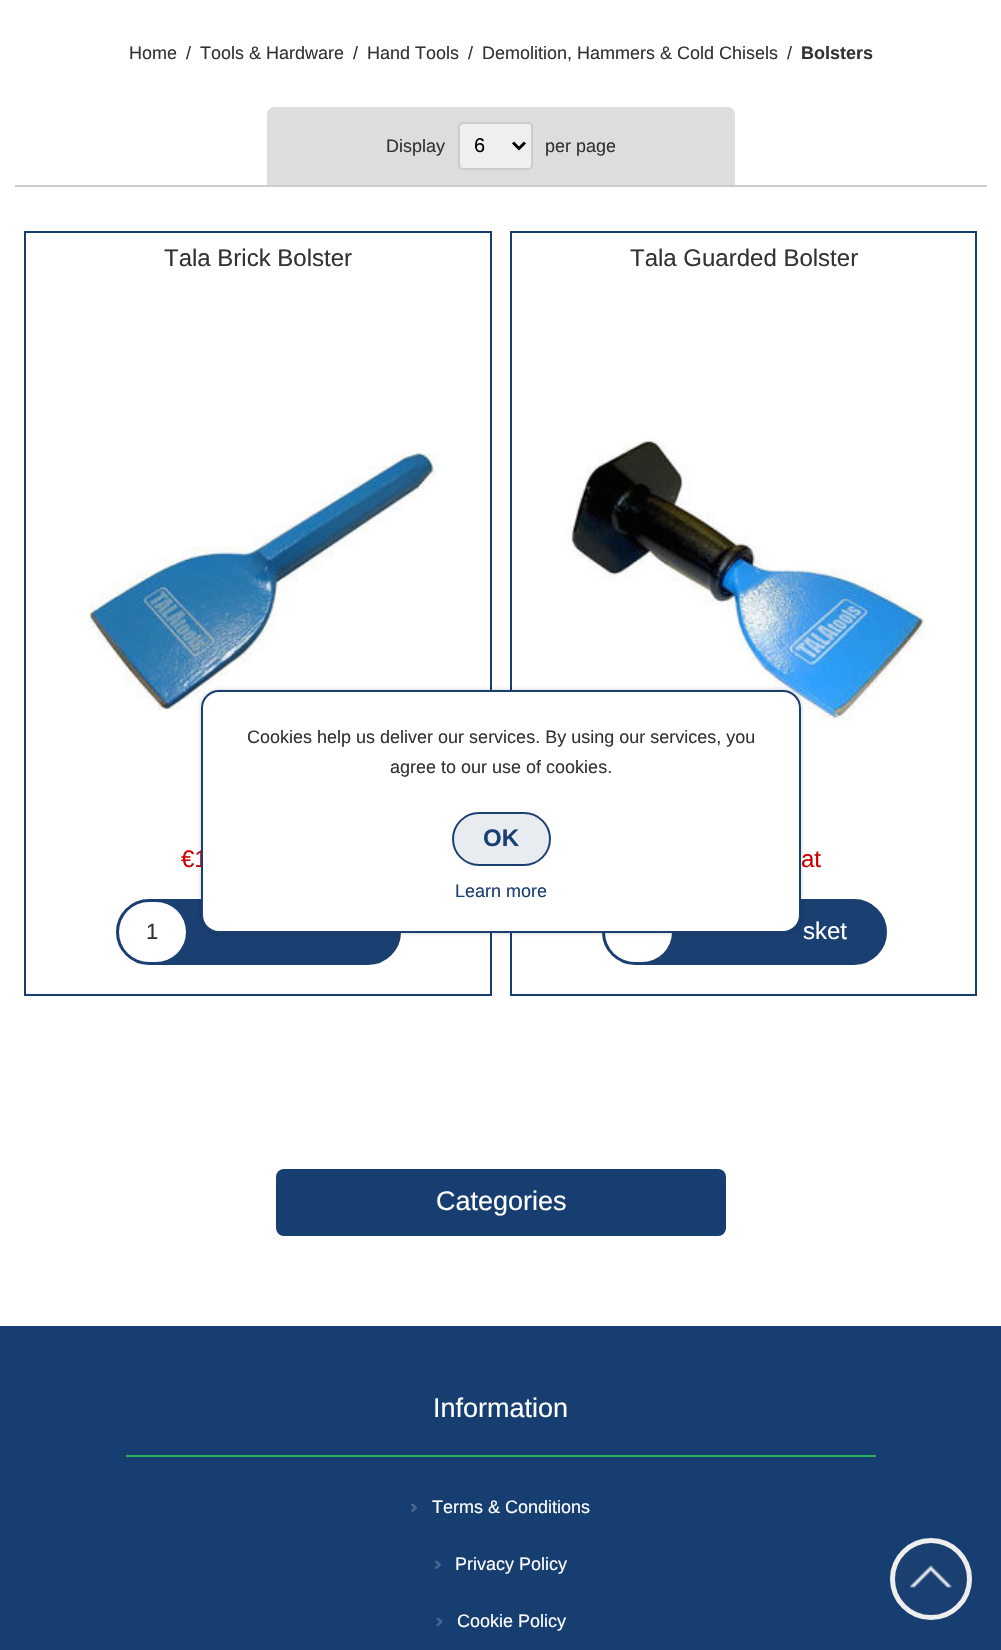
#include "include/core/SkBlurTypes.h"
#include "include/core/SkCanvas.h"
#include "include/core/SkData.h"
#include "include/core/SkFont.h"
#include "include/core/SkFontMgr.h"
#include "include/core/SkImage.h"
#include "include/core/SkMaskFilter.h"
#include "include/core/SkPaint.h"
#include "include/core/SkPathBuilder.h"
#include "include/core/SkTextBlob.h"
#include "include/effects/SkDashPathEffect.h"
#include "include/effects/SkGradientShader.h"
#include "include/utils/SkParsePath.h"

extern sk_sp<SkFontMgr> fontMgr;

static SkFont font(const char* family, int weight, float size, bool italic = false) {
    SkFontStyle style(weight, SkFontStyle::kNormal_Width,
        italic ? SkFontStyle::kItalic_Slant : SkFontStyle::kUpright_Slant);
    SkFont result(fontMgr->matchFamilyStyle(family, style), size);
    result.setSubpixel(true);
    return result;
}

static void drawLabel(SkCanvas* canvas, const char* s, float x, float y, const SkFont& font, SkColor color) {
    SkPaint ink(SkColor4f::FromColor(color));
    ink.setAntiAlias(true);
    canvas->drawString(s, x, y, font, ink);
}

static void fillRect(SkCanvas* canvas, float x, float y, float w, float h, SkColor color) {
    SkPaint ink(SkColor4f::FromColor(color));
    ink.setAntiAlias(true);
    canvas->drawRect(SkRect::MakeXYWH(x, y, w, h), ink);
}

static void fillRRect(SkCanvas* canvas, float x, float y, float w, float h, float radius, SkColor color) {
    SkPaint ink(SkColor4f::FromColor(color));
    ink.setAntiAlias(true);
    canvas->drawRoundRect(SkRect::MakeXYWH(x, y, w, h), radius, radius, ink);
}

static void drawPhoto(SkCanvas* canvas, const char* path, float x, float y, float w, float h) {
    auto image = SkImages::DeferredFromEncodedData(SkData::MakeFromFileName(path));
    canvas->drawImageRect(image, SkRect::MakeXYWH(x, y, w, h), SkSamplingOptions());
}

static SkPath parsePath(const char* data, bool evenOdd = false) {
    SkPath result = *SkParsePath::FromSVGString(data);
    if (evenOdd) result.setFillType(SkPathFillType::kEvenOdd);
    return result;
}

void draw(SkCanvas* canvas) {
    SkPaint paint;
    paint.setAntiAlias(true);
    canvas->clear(0xFFFFFFFF);
    SkFont font1 = font("Liberation Sans", 400, 18);
    drawLabel(canvas, "Home", 129, 59, font1, 0xFF333333);
    drawLabel(canvas, "/", 186, 59, font1, 0xFF333333);
    drawLabel(canvas, "Tools & Hardware", 200, 59, font1, 0xFF333333);
    drawLabel(canvas, "/", 353, 59, font1, 0xFF333333);
    drawLabel(canvas, "Hand Tools", 367, 59, font1, 0xFF333333);
    drawLabel(canvas, "/", 468, 59, font1, 0xFF333333);
    drawLabel(canvas, "Demolition, Hammers & Cold Chisels", 482, 59, font1, 0xFF333333);
    drawLabel(canvas, "/", 787, 59, font1, 0xFF333333);
    SkFont font2 = font("Liberation Sans", 700, 18);
    drawLabel(canvas, "Bolsters", 801, 59, font2, 0xFF333333);
    fillRect(canvas, 15, 185, 972, 2, 0xFFCCCCCC);
    paint.setColor(0xFFDDDDDD);
    canvas->drawPath(parsePath("M275 107H727C731.5 107 735 110.5 735 115V185H267V115C267 110.5 270.5 107 275 107Z"), paint);
    drawLabel(canvas, "Display", 386, 152, font1, 0xFF333333);
    paint.setColor(0xFFEFEFEF);
    canvas->drawRoundRect(SkRect::MakeXYWH(459, 123, 73, 46), 4, 4, paint);
    paint.setStroke(true);
    paint.setStrokeWidth(2);
    paint.setColor(0xFFCCCCCC);
    canvas->drawRoundRect(SkRect::MakeXYWH(459, 123, 73, 46), 4, 4, paint);
    paint.setStrokeWidth(3);
    paint.setColor(0xFF000000);
    canvas->drawPath(parsePath("M513 142.5L519 148.5L525 142.5"), paint);
    SkFont font3 = font("Liberation Sans", 400, 20);
    drawLabel(canvas, "6", 474, 152, font3, 0xFF000000);
    drawLabel(canvas, "per page", 545, 152, font1, 0xFF333333);
    paint.setStrokeWidth(2);
    paint.setColor(0xFF163E71);
    canvas->drawRect(SkRect::MakeXYWH(25, 232, 466, 763), paint);
    SkFont font4 = font("Liberation Sans", 400, 24);
    drawLabel(canvas, "Tala Brick Bolster", 164, 266, font4, 0xFF333333);
    drawPhoto(canvas, "assets/img1.png", 88, 449, 351, 261);
    drawLabel(canvas, "€1", 181, 867, font4, 0xFFCC0000);
    paint.setStroke(false);
    paint.setColor(0xFF1A3F71);
    canvas->drawRoundRect(SkRect::MakeXYWH(117.5f, 900.5f, 282, 63), 31.5f, 31.5f, paint);
    paint.setStroke(true);
    paint.setStrokeWidth(3);
    canvas->drawRoundRect(SkRect::MakeXYWH(117.5f, 900.5f, 282, 63), 31.5f, 31.5f, paint);
    fillRRect(canvas, 119, 902, 67, 60, 30, 0xFFFFFFFF);
    SkFont font5 = font("Liberation Sans", 400, 22);
    drawLabel(canvas, "1", 146, 939, font5, 0xFF333333);
    paint.setStrokeWidth(2);
    paint.setColor(0xFF163E71);
    canvas->drawRect(SkRect::MakeXYWH(511, 232, 465, 763), paint);
    drawLabel(canvas, "Tala Guarded Bolster", 630, 266, font4, 0xFF333333);
    drawPhoto(canvas, "assets/img2.png", 564, 439, 361, 283);
    drawLabel(canvas, "at", 801, 867, font4, 0xFFCC0000);
    paint.setStroke(false);
    paint.setColor(0xFF1A3F71);
    canvas->drawRoundRect(SkRect::MakeXYWH(603.5f, 900.5f, 282, 63), 31.5f, 31.5f, paint);
    paint.setStroke(true);
    paint.setStrokeWidth(3);
    canvas->drawRoundRect(SkRect::MakeXYWH(603.5f, 900.5f, 282, 63), 31.5f, 31.5f, paint);
    fillRRect(canvas, 605, 902, 67, 60, 30, 0xFFFFFFFF);
    drawLabel(canvas, "sket", 803, 939, font4, 0xFFFFFFFF);
    fillRRect(canvas, 276, 1169, 450, 67, 8, 0xFF163E71);
    SkFont font6 = font("Liberation Sans", 400, 27);
    drawLabel(canvas, "Categories", 436, 1210, font6, 0xFFFFFFFF);
    fillRect(canvas, 0, 1326, 1001, 324, 0xFF163E71);
    fillRect(canvas, 126, 1455, 750, 2, 0xFF2BB157);
    drawLabel(canvas, "Information", 433, 1417, font6, 0xFFFFFFFF);
    drawPhoto(canvas, "assets/img3.png", 411, 1504, 6, 8);
    drawLabel(canvas, "Terms & Conditions", 432, 1513, font1, 0xFFFFFFFF);
    drawPhoto(canvas, "assets/img3.png", 435, 1561, 6, 8);
    drawLabel(canvas, "Privacy Policy", 455, 1570, font1, 0xFFFFFFFF);
    drawPhoto(canvas, "assets/img4.png", 436, 1618, 7, 8);
    drawLabel(canvas, "Cookie Policy", 457, 1627, font1, 0xFFFFFFFF);
    paint.setStroke(false);
    paint.setColor(0x33000000);
    paint.setMaskFilter(SkMaskFilter::MakeBlur(kNormal_SkBlurStyle, 2));
    canvas->drawRoundRect(SkRect::MakeXYWH(201, 690, 600, 243), 18, 18, paint);
    paint.setMaskFilter(nullptr);
    paint.setColor(0xFFFFFFFF);
    canvas->drawRoundRect(SkRect::MakeXYWH(202, 691, 598, 241), 17, 17, paint);
    paint.setStroke(true);
    paint.setStrokeWidth(2);
    paint.setColor(0xFF1A3F71);
    canvas->drawRoundRect(SkRect::MakeXYWH(202, 691, 598, 241), 17, 17, paint);
    drawLabel(canvas, "Cookies help us deliver our services. By using our services, you", 247, 743, font1, 0xFF333333);
    drawLabel(canvas, "agree to our use of cookies.", 390, 773, font1, 0xFF333333);
    paint.setStroke(false);
    paint.setColor(0xFFE8ECF1);
    canvas->drawRoundRect(SkRect::MakeXYWH(453, 813, 97, 52), 26, 26, paint);
    paint.setStroke(true);
    paint.setColor(0xFF1A3F71);
    canvas->drawRoundRect(SkRect::MakeXYWH(453, 813, 97, 52), 26, 26, paint);
    SkFont font7 = font("Liberation Sans", 700, 24);
    drawLabel(canvas, "OK", 483, 846, font7, 0xFF1A3F71);
    drawLabel(canvas, "Learn more", 455, 897, font1, 0xFF1A3F71);
    paint.setStroke(false);
    canvas->drawCircle(931, 1579, 41, paint);
    drawPhoto(canvas, "assets/img5.png", 910, 1565, 42, 23);
    paint.setStroke(true);
    paint.setStrokeWidth(5);
    paint.setColor(0xFFEEEEEE);
    canvas->drawCircle(931, 1579, 38.5f, paint);
}
